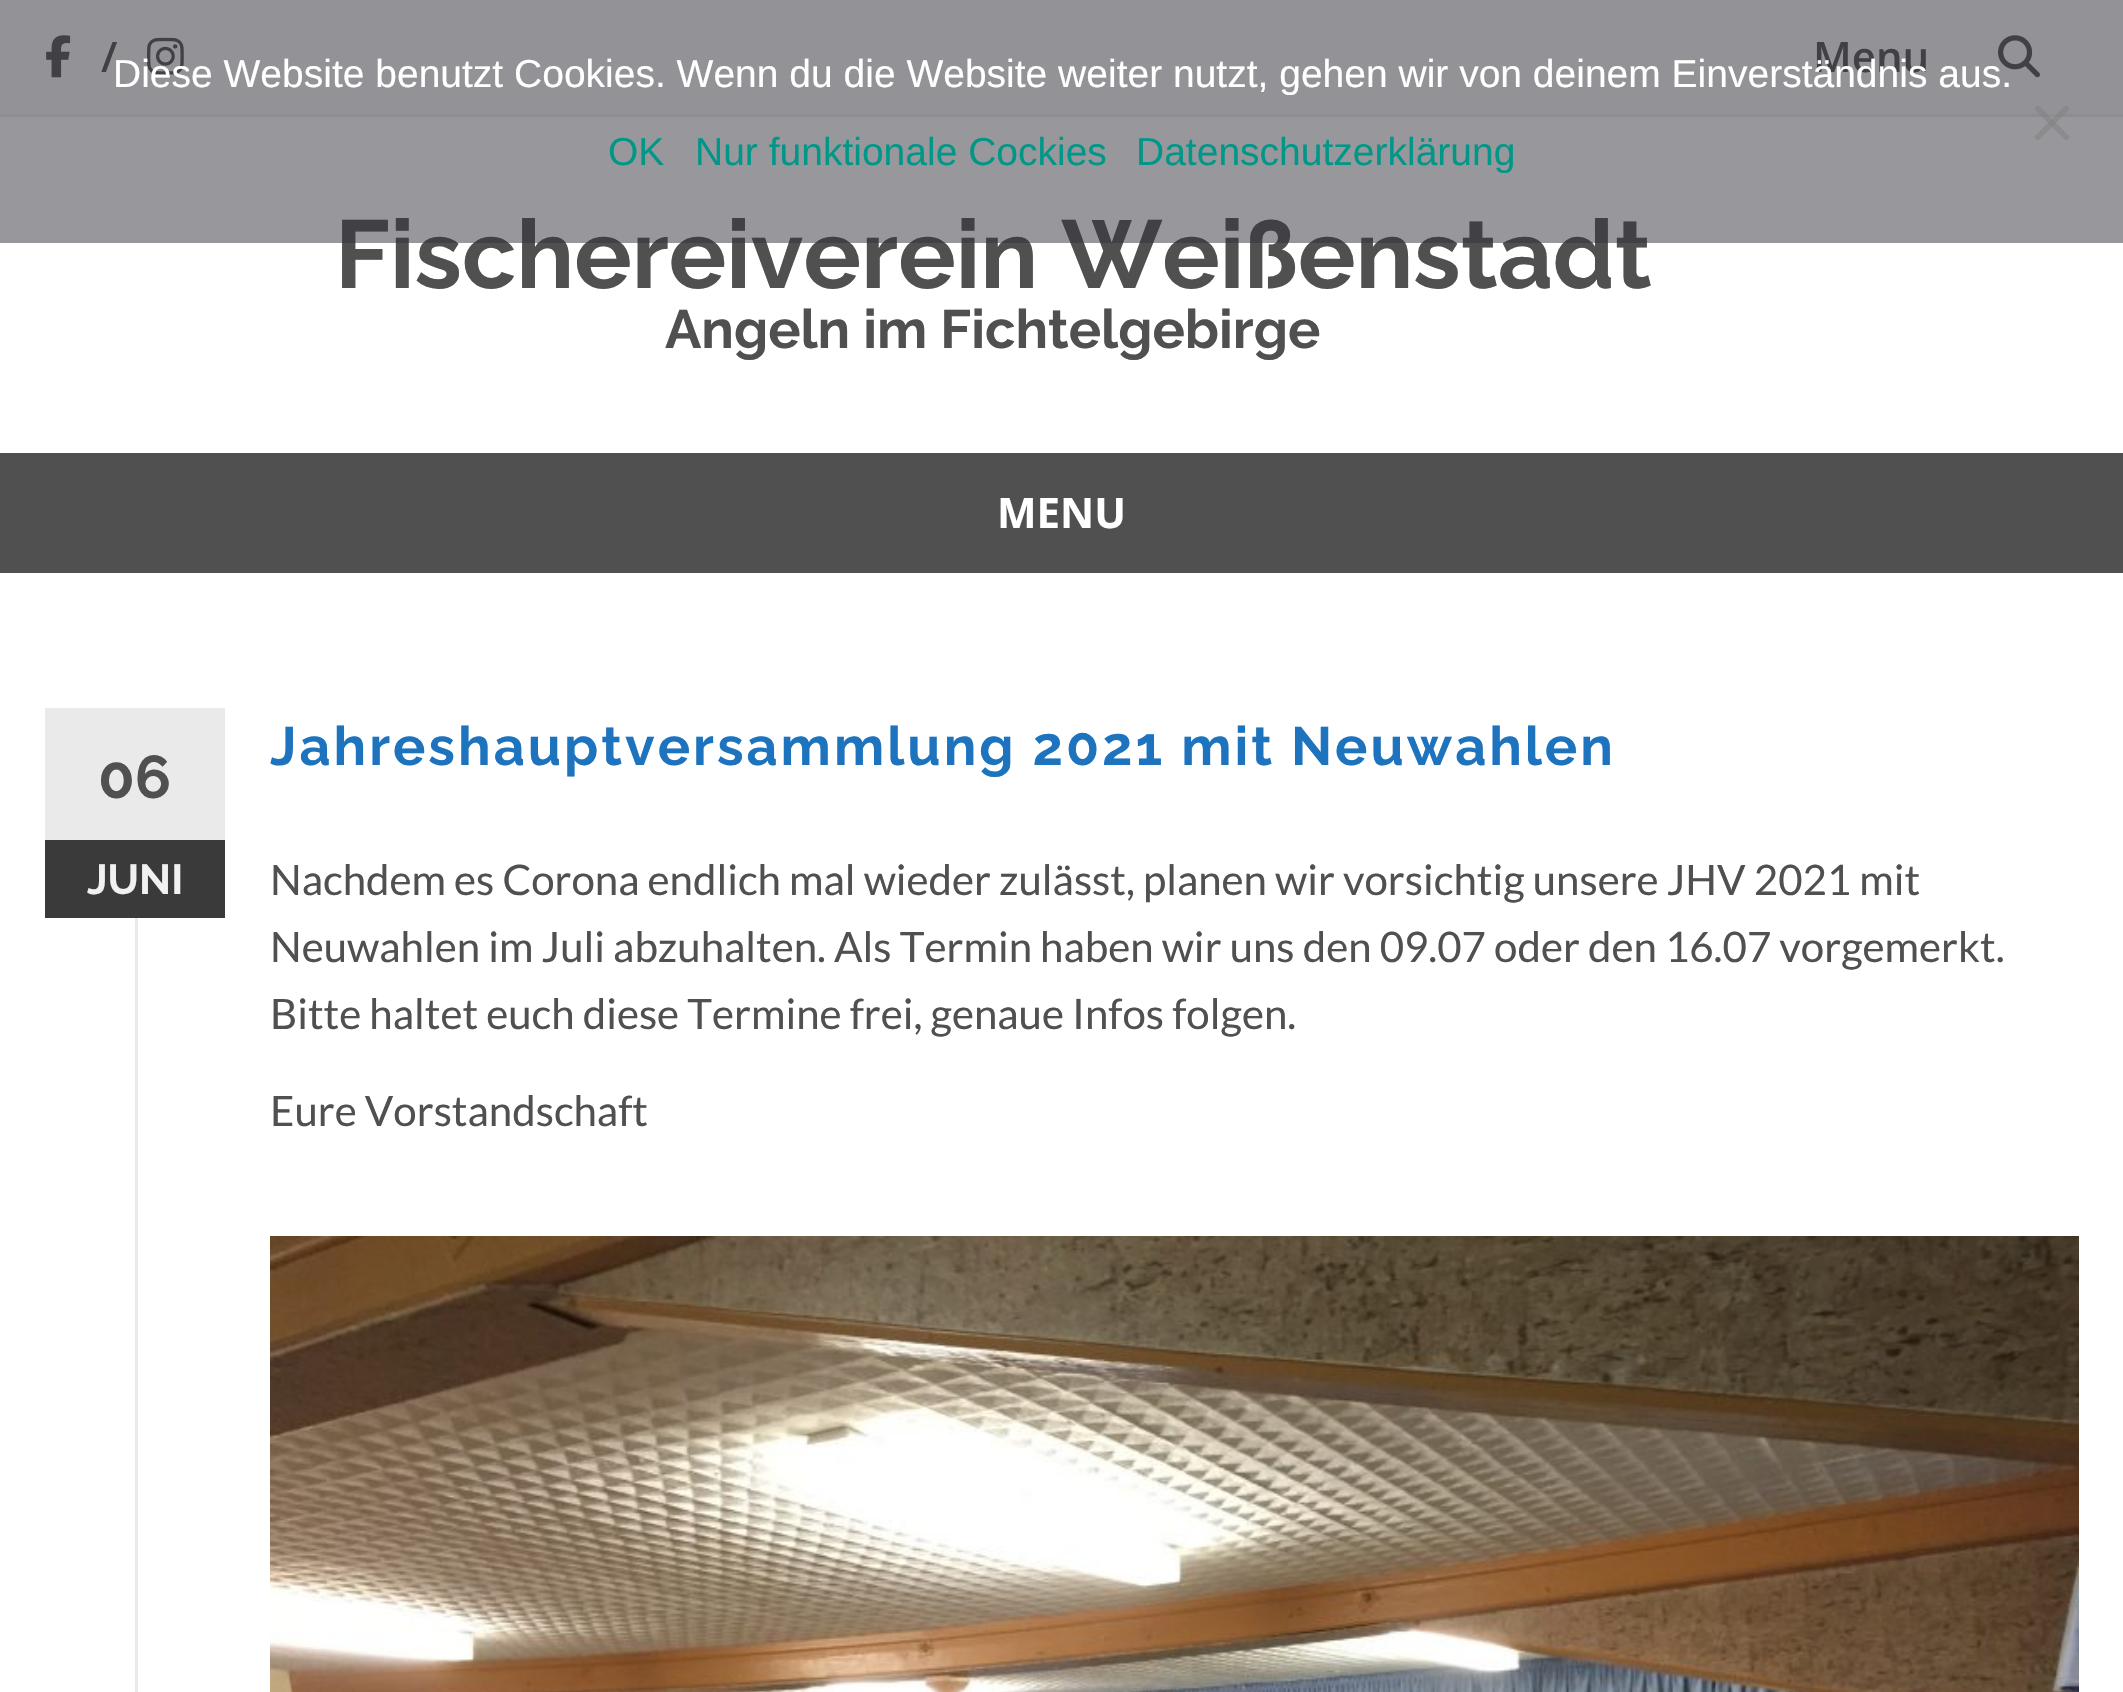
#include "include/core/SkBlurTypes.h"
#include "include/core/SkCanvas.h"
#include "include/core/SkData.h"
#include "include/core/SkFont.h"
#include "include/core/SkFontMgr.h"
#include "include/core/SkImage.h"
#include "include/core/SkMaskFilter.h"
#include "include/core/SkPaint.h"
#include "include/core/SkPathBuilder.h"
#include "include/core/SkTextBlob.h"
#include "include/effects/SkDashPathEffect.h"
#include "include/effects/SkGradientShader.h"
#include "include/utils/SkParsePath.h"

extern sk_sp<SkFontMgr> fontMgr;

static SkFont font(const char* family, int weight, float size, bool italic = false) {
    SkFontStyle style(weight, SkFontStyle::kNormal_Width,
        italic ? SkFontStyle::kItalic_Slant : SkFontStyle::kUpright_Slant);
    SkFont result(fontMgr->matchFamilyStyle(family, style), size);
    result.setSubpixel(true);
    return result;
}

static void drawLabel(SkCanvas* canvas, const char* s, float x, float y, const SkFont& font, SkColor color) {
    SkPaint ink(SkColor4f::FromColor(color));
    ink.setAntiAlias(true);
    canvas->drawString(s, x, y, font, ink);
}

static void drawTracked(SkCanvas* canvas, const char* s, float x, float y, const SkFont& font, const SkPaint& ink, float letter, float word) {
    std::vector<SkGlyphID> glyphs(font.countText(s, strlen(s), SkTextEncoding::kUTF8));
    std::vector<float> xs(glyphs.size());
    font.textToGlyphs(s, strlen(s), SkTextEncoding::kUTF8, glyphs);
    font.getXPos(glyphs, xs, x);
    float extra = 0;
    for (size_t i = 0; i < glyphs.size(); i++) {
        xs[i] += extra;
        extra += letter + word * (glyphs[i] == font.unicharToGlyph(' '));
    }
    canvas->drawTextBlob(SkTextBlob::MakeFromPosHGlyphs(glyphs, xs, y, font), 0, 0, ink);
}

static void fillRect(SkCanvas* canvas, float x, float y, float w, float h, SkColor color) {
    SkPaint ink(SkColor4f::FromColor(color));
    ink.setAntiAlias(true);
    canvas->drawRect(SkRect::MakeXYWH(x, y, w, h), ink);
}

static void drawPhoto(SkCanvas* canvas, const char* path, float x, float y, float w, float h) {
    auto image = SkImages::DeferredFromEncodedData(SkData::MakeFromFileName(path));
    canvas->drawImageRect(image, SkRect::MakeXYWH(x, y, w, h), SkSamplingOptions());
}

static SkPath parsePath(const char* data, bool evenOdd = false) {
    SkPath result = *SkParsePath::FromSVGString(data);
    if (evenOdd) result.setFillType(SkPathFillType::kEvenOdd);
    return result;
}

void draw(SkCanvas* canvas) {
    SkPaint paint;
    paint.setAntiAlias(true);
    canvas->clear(0xFFFFFFFF);
    fillRect(canvas, 0, 0, 2123, 114, 0xFFF5F5F5);
    fillRect(canvas, 0, 114, 2123, 3, 0xFFEAEAEA);
    drawPhoto(canvas, "assets/img1.png", 46, 35, 25, 43);
    SkFont font1 = font("Open Sans", 600, 42);
    drawLabel(canvas, "/", 101, 72, font1, 0xFF505050);
    drawPhoto(canvas, "assets/img2.png", 147, 37, 37, 38);
    drawLabel(canvas, "Menu", 1813, 72, font1, 0xFF505050);
    drawPhoto(canvas, "assets/img3.png", 1998, 35, 42, 43);
    SkFont font2 = font("Raleway", 700, 96);
    drawLabel(canvas, "Fischereiverein Weißenstadt", 335, 288, font2, 0xFF505050);
    SkFont font3 = font("Raleway", 700, 54);
    drawLabel(canvas, "Angeln im Fichtelgebirge", 665, 348, font3, 0xFF505050);
    fillRect(canvas, 0, 453, 2123, 120, 0xFF505050);
    SkFont font4 = font("Open Sans", 700, 42);
    drawLabel(canvas, "MENU", 997, 528, font4, 0xFFFFFFFF);
    fillRect(canvas, 45, 708, 180, 132, 0xFFEAEAEA);
    SkFont font5 = font("Raleway", 700, 60);
    drawLabel(canvas, "06", 98, 798, font5, 0xFF505050);
    fillRect(canvas, 45, 840, 180, 78, 0xFF3A3A3A);
    SkFont font6 = font("Raleway", 700, 42);
    drawLabel(canvas, "JUNI", 87, 894, font6, 0xFFF1F1F1);
    paint.setColor(0xFF1E73BE);
    drawTracked(canvas, "Jahreshauptversammlung 2021 mit Neuwahlen", 270, 765, font3, paint, 3, 0);
    fillRect(canvas, 135, 918, 3, 774, 0xFFEAEAEA);
    SkFont font7 = font("Lato", 400, 42);
    drawLabel(canvas, "Nachdem es Corona endlich mal wieder zulässt, planen wir vorsichtig unsere JHV 2021 mit", 270, 895, font7, 0xFF505050);
    drawLabel(canvas, "Neuwahlen im Juli abzuhalten. Als Termin haben wir uns den 09.07 oder den 16.07 vorgemerkt.", 270, 962, font7, 0xFF505050);
    drawLabel(canvas, "Bitte haltet euch diese Termine frei, genaue Infos folgen.", 270, 1029, font7, 0xFF505050);
    drawLabel(canvas, "Eure Vorstandschaft", 270, 1126, font7, 0xFF505050);
    drawPhoto(canvas, "assets/img4.png", 270, 1236, 1809, 456);
    fillRect(canvas, 0, 0, 2123, 243, 0x8032323A);
    SkFont font8 = font("Liberation Sans", 400, 39);
    drawLabel(canvas, "Diese Website benutzt Cookies. Wenn du die Website weiter nutzt, gehen wir von deinem Einverständnis aus.", 113, 87, font8, 0xFFFFFFFF);
    paint.setColor(0x80808080);
    canvas->drawPath(parsePath("M2066 105L2070 109L2038 141L2034 137Z"), paint);
    canvas->drawPath(parsePath("M2034 109L2038 105L2070 137L2066 141Z"), paint);
    drawLabel(canvas, "OK", 608, 165, font8, 0xFF009688);
    drawLabel(canvas, "Nur funktionale Cockies", 695, 165, font8, 0xFF009688);
    drawLabel(canvas, "Datenschutzerklärung", 1136, 165, font8, 0xFF009688);
}
